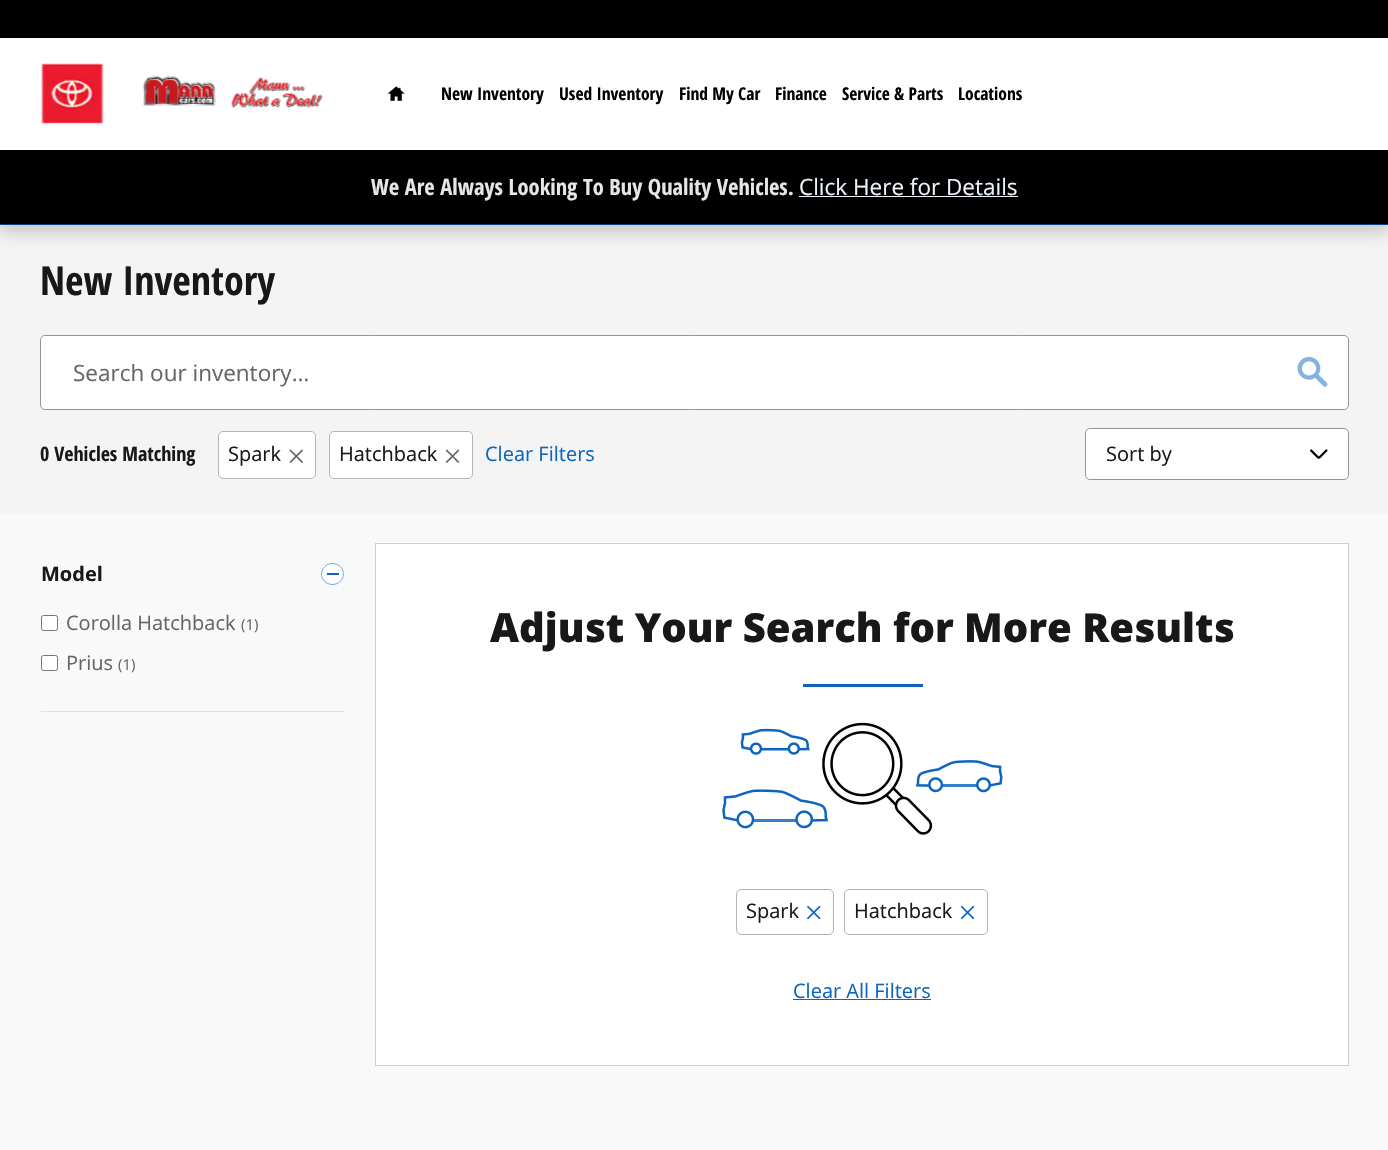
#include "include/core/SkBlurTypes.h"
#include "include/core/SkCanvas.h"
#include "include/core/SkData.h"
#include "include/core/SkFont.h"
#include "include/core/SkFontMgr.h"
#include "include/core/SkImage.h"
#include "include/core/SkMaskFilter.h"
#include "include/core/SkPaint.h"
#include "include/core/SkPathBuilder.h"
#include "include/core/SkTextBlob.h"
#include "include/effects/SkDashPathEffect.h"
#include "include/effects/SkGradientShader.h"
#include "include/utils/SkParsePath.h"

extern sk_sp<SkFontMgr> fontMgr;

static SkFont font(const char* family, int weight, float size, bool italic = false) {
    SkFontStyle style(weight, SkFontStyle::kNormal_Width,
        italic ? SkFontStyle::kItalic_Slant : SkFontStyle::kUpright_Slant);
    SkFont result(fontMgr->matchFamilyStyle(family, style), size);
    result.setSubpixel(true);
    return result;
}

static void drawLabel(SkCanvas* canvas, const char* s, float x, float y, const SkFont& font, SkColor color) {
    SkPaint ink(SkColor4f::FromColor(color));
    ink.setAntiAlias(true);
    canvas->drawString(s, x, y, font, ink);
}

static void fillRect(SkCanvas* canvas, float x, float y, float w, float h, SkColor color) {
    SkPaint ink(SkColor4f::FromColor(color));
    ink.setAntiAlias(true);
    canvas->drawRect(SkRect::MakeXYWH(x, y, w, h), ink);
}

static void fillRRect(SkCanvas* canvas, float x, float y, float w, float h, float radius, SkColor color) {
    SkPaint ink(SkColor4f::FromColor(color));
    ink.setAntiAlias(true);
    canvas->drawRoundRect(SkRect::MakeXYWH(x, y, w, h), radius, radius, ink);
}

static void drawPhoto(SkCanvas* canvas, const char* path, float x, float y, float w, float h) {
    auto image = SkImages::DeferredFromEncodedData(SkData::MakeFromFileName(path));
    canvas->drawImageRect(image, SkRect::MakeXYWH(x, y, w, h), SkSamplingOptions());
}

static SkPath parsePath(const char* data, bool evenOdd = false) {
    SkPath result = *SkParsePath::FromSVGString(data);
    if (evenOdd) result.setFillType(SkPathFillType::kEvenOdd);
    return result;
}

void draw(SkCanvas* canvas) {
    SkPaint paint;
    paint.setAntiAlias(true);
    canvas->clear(0xFFF9F9FA);
    fillRect(canvas, 0, 225, 1388, 288, 0xFFF4F4F4);
    paint.setColor(0x2E000000);
    paint.setMaskFilter(SkMaskFilter::MakeBlur(kNormal_SkBlurStyle, 7.5f));
    canvas->drawRect(SkRect::MakeXYWH(0, 8, 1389, 225), paint);
    paint.setMaskFilter(nullptr);
    fillRect(canvas, 0, 38, 1388, 112, 0xFFFFFFFF);
    fillRect(canvas, 0, 224, 1388, 1, 0xFF0A468D);
    fillRect(canvas, 0, 0, 1388, 38, 0xFF000000);
    drawPhoto(canvas, "assets/img1.png", 41, 63, 63, 61);
    drawPhoto(canvas, "assets/img2.png", 143, 75, 180, 33);
    drawPhoto(canvas, "assets/img3.png", 387, 86, 18, 15);
    SkFont font1 = font("Open Sans Condensed", 700, 17.5f);
    drawLabel(canvas, "New Inventory", 441, 100, font1, 0xFF000000);
    drawLabel(canvas, "Used Inventory", 559, 100, font1, 0xFF000000);
    drawLabel(canvas, "Find My Car", 679, 100, font1, 0xFF000000);
    drawLabel(canvas, "Finance", 775, 100, font1, 0xFF000000);
    drawLabel(canvas, "Service & Parts", 842, 100, font1, 0xFF000000);
    drawLabel(canvas, "Locations", 958, 100, font1, 0xFF000000);
    fillRect(canvas, 0, 150, 1388, 74, 0xFF000000);
    SkFont font2 = font("Open Sans Condensed", 700, 22.5f);
    drawLabel(canvas, "We Are Always Looking To Buy Quality Vehicles.", 371, 195, font2, 0xFFE6E6E6);
    SkFont font3 = font("Open Sans", 400, 22.5f);
    drawLabel(canvas, "Click Here for Details", 799, 195, font3, 0xFFECF3FA);
    fillRect(canvas, 799, 196, 219, 1, 0xFFECF3FA);
    SkFont font4 = font("Open Sans Condensed", 700, 40);
    drawLabel(canvas, "New Inventory", 40, 295, font4, 0xFF181818);
    paint.setColor(0xFFFFFFFF);
    canvas->drawRoundRect(SkRect::MakeXYWH(40.5f, 335.5f, 1308, 74), 4.5f, 4.5f, paint);
    paint.setStroke(true);
    paint.setStrokeWidth(1);
    paint.setColor(0xFF949599);
    canvas->drawRoundRect(SkRect::MakeXYWH(40.5f, 335.5f, 1308, 74), 4.5f, 4.5f, paint);
    drawLabel(canvas, "Search our inventory…", 73, 381, font3, 0xFF666666);
    drawPhoto(canvas, "assets/img4.png", 1297, 356, 31, 31);
    SkFont font5 = font("Open Sans Condensed", 700, 20);
    drawLabel(canvas, "0 Vehicles Matching", 40, 461, font5, 0xFF181818);
    paint.setStroke(false);
    paint.setColor(0xFFFFFFFF);
    canvas->drawRoundRect(SkRect::MakeXYWH(218.5f, 431.5f, 97, 47), 4.5f, 4.5f, paint);
    paint.setStroke(true);
    paint.setColor(0xFFB3B4B7);
    canvas->drawRoundRect(SkRect::MakeXYWH(218.5f, 431.5f, 97, 47), 4.5f, 4.5f, paint);
    SkFont font6 = font("Open Sans", 400, 20);
    drawLabel(canvas, "Spark", 228, 461, font6, 0xFF181818);
    drawPhoto(canvas, "assets/img5.png", 289, 449, 14, 14);
    paint.setStroke(false);
    paint.setColor(0xFFFFFFFF);
    canvas->drawRoundRect(SkRect::MakeXYWH(329.5f, 431.5f, 143, 47), 4.5f, 4.5f, paint);
    paint.setStroke(true);
    paint.setColor(0xFFB3B4B7);
    canvas->drawRoundRect(SkRect::MakeXYWH(329.5f, 431.5f, 143, 47), 4.5f, 4.5f, paint);
    drawLabel(canvas, "Hatchback", 339, 461, font6, 0xFF181818);
    drawPhoto(canvas, "assets/img6.png", 445, 449, 15, 14);
    drawLabel(canvas, "Clear Filters", 485, 461, font6, 0xFF0D65BF);
    fillRRect(canvas, 1085, 428, 264, 52, 5, 0xFFFFFFFF);
    drawPhoto(canvas, "assets/img7.png", 1310, 449, 18, 10);
    paint.setColor(0xFF949599);
    canvas->drawRoundRect(SkRect::MakeXYWH(1085.5f, 428.5f, 263, 51), 4.5f, 4.5f, paint);
    drawLabel(canvas, "Sort by", 1106, 461, font6, 0xFF181818);
    paint.setStroke(false);
    paint.setColor(0xFFE0E0E1);
    canvas->drawPath(parsePath("M345 712H40L41 711H344Z"), paint);
    SkFont font7 = font("Open Sans", 700, 20);
    drawLabel(canvas, "Model", 41, 581, font7, 0xFF181818);
    paint.setColor(0xFFFFFFFF);
    canvas->drawRoundRect(SkRect::MakeXYWH(321.5f, 563.5f, 22, 21), 10.5f, 10.5f, paint);
    paint.setStroke(true);
    paint.setColor(0xFF7CACDC);
    canvas->drawRoundRect(SkRect::MakeXYWH(321.5f, 563.5f, 22, 21), 10.5f, 10.5f, paint);
    fillRect(canvas, 327, 573, 12, 2, 0xFF0D65BF);
    paint.setStroke(false);
    paint.setColor(0xFFFFFFFF);
    canvas->drawRoundRect(SkRect::MakeXYWH(41.5f, 615.5f, 16, 15), 2, 2, paint);
    paint.setStroke(true);
    paint.setColor(0xFF767676);
    canvas->drawRoundRect(SkRect::MakeXYWH(41.5f, 615.5f, 16, 15), 2, 2, paint);
    drawLabel(canvas, "Corolla Hatchback", 66, 630, font6, 0xFF666666);
    SkFont font8 = font("Open Sans", 400, 15);
    drawLabel(canvas, "(1)", 241, 630, font8, 0xFF666666);
    paint.setStroke(false);
    paint.setColor(0xFFFFFFFF);
    canvas->drawRoundRect(SkRect::MakeXYWH(41.5f, 655.5f, 16, 15), 2, 2, paint);
    paint.setStroke(true);
    paint.setColor(0xFF767676);
    canvas->drawRoundRect(SkRect::MakeXYWH(41.5f, 655.5f, 16, 15), 2, 2, paint);
    drawLabel(canvas, "Prius", 66, 670, font6, 0xFF666666);
    drawLabel(canvas, "(1)", 118, 670, font8, 0xFF666666);
    paint.setStroke(false);
    paint.setColor(0xFFFFFFFF);
    canvas->drawRect(SkRect::MakeXYWH(375.5f, 543.5f, 973, 522), paint);
    paint.setStroke(true);
    paint.setColor(0xFFCECFD1);
    canvas->drawRect(SkRect::MakeXYWH(375.5f, 543.5f, 973, 522), paint);
    SkFont font9 = font("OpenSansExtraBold", 800, 40);
    drawLabel(canvas, "Adjust Your Search for More Results", 490, 642, font9, 0xFF181818);
    fillRect(canvas, 803, 684, 120, 3, 0xFF0D65BF);
    drawPhoto(canvas, "assets/img8.png", 722, 722, 281, 113);
    paint.setColor(0xFFB3B4B7);
    canvas->drawRoundRect(SkRect::MakeXYWH(736.5f, 889.5f, 97, 45), 4.5f, 4.5f, paint);
    drawLabel(canvas, "Spark", 746, 918, font6, 0xFF181818);
    drawPhoto(canvas, "assets/img9.png", 807, 905, 14, 15);
    canvas->drawRoundRect(SkRect::MakeXYWH(844.5f, 889.5f, 143, 45), 4.5f, 4.5f, paint);
    drawLabel(canvas, "Hatchback", 854, 918, font6, 0xFF181818);
    drawPhoto(canvas, "assets/img10.png", 960, 905, 15, 15);
    drawLabel(canvas, "Clear All Filters", 793, 998, font6, 0xFF0D65BF);
    fillRect(canvas, 793, 999, 138, 1, 0xFF0D65BF);
}
